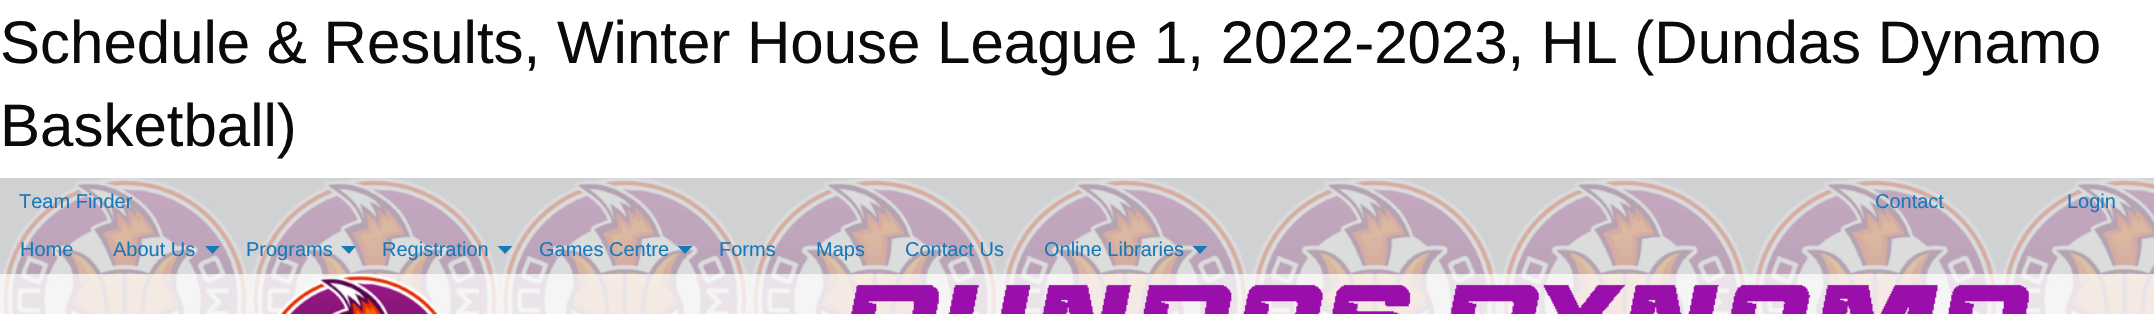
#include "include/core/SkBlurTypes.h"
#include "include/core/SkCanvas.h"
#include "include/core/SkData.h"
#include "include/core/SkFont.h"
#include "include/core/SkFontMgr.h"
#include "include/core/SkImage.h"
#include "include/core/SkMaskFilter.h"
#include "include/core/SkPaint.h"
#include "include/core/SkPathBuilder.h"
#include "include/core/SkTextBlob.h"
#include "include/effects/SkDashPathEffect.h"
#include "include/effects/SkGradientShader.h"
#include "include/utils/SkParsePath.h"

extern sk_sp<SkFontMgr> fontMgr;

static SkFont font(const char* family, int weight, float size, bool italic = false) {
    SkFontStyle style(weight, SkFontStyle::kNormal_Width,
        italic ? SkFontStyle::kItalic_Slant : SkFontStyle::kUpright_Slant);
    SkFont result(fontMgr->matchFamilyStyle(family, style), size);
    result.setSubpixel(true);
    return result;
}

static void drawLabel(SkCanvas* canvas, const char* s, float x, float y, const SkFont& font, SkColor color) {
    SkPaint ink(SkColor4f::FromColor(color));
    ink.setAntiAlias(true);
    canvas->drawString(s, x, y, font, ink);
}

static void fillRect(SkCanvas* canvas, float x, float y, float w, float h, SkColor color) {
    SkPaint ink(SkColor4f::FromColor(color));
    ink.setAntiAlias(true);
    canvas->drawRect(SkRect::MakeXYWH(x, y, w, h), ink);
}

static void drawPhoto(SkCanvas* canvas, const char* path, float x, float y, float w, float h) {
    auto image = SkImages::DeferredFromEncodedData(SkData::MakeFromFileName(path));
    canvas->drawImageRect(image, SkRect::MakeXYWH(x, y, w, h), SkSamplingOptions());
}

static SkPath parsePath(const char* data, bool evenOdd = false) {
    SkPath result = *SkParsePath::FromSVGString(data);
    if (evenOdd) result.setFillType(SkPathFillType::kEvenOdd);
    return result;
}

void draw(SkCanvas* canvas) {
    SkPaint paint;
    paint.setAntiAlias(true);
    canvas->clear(0xFFFFFFFF);
    SkFont font1 = font("Liberation Sans", 400, 60);
    drawLabel(canvas, "Schedule & Results, Winter House League 1, 2022-2023, HL (Dundas Dynamo", 0, 63, font1, 0xFF0A0A0A);
    drawLabel(canvas, "Basketball)", 0, 146, font1, 0xFF0A0A0A);
    fillRect(canvas, 0, 178, 2154, 136, 0xFFD0D1D2);
    drawPhoto(canvas, "assets/img1.png", 0, 178, 2154, 136);
    SkFont font2 = font("Liberation Sans", 400, 20);
    drawLabel(canvas, "Team Finder", 19, 208, font2, 0xFF1779BA);
    drawLabel(canvas, "Contact", 1875, 208, font2, 0xFF1779BA);
    drawLabel(canvas, "Login", 2067, 208, font2, 0xFF1779BA);
    drawLabel(canvas, "Home", 20, 256, font2, 0xFF1779BA);
    drawLabel(canvas, "About Us", 113, 256, font2, 0xFF1779BA);
    paint.setColor(0xFF1779BA);
    canvas->drawPath(parsePath("M205 246H220L212.5 254Z"), paint);
    drawLabel(canvas, "Programs", 246, 256, font2, 0xFF1779BA);
    canvas->drawPath(parsePath("M341 246H356L349 254Z"), paint);
    drawLabel(canvas, "Registration", 382, 256, font2, 0xFF1779BA);
    canvas->drawPath(parsePath("M497.5 246H512.5L505 254Z"), paint);
    drawLabel(canvas, "Games Centre", 539, 256, font2, 0xFF1779BA);
    canvas->drawPath(parsePath("M677.5 246H692.5L685 254Z"), paint);
    drawLabel(canvas, "Forms", 719, 256, font2, 0xFF1779BA);
    drawLabel(canvas, "Maps", 816, 256, font2, 0xFF1779BA);
    drawLabel(canvas, "Contact Us", 905, 256, font2, 0xFF1779BA);
    drawLabel(canvas, "Online Libraries", 1044, 256, font2, 0xFF1779BA);
    canvas->drawPath(parsePath("M1192.5 246H1207.5L1200 254Z"), paint);
    fillRect(canvas, 0, 274, 2154, 40, 0xB3FFFFFF);
    drawPhoto(canvas, "assets/img2.png", 277, 273, 164, 41);
    drawPhoto(canvas, "assets/img3.png", 851, 284, 1178, 30);
}
